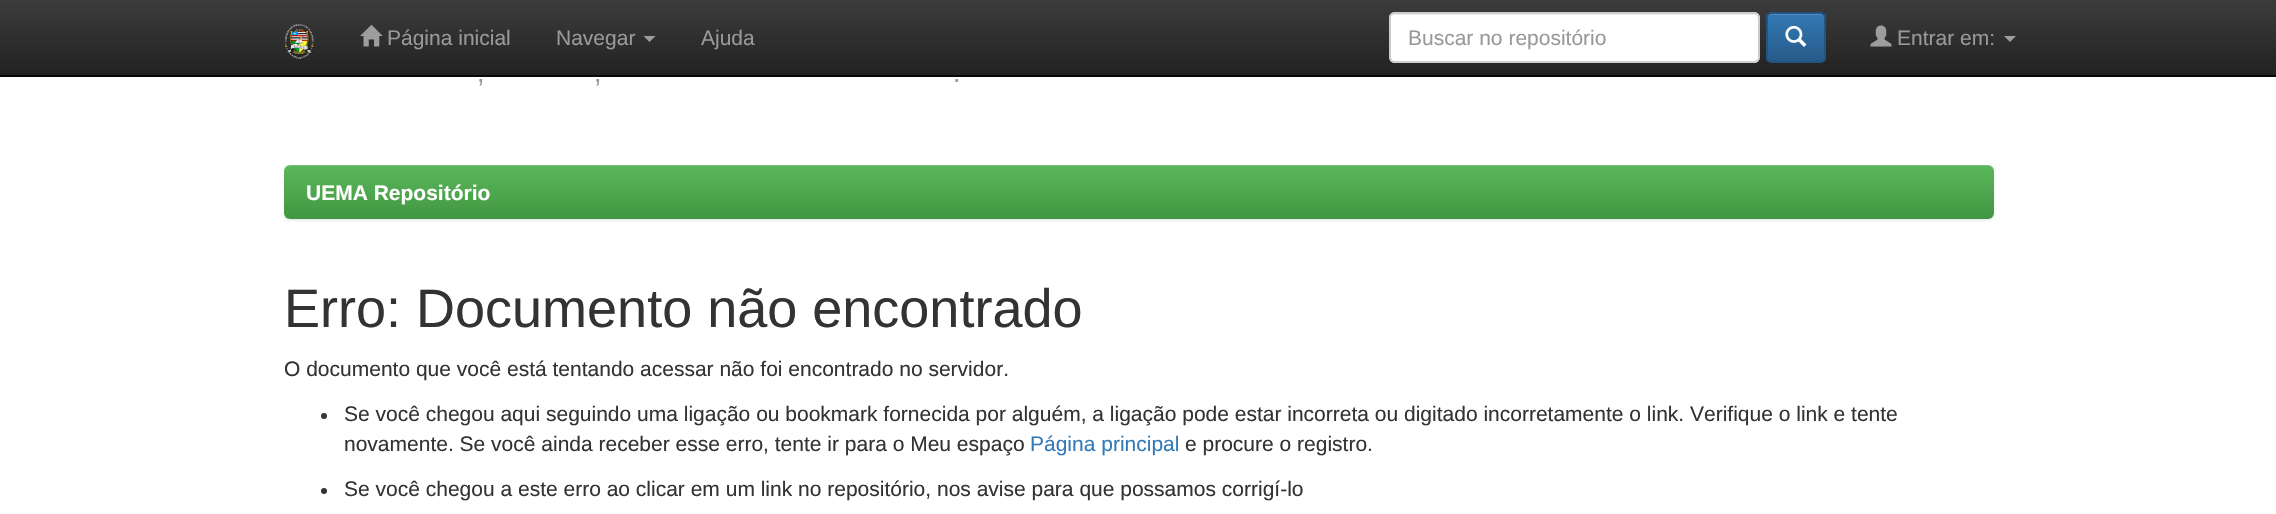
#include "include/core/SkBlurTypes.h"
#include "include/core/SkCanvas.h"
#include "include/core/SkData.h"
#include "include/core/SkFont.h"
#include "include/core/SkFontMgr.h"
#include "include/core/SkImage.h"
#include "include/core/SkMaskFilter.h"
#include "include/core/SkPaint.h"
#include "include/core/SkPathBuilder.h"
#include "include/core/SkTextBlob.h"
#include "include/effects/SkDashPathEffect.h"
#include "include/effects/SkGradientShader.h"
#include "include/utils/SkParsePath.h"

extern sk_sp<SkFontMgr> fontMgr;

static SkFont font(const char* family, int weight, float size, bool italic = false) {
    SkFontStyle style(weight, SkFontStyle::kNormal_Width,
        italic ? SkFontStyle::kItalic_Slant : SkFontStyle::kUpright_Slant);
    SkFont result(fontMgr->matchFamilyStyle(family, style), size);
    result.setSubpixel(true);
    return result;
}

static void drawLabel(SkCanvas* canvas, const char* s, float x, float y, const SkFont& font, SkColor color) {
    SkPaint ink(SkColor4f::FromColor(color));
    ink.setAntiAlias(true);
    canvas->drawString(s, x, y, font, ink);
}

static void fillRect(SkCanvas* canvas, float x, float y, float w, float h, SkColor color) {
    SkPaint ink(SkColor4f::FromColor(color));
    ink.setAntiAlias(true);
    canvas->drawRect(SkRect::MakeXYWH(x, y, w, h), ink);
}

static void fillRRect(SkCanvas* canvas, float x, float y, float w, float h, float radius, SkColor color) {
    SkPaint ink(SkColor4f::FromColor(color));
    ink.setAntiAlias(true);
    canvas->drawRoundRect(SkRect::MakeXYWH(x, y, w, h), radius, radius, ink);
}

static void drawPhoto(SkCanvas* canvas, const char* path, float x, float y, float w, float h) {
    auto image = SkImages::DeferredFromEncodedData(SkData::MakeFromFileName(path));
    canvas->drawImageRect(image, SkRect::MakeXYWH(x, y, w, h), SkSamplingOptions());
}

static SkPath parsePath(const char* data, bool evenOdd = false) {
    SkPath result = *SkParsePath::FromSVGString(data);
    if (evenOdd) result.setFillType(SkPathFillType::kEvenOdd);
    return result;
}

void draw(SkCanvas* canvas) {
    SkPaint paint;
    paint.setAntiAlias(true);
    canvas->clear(0xFFFFFFFF);
    {
        const SkColor colors[] = {0xFF3C3C3C, 0xFF222222};
        const float stops[] = {0, 1};
        const SkPoint ends[] = {{1139, 0}, {1139, 75}};
        paint.setShader(SkGradientShader::MakeLinear(ends, colors, stops, 2, SkTileMode::kClamp));
        paint.setAlpha(255);
    }
    canvas->drawRect(SkRect::MakeXYWH(0, 0, 2276, 75), paint);
    fillRect(canvas, 0, 75, 2276, 2, 0xFF080808);
    drawPhoto(canvas, "assets/img1.png", 285, 24, 30, 35);
    drawPhoto(canvas, "assets/img2.png", 360, 24, 23, 23);
    SkFont font1 = font("Liberation Sans", 400, 21);
    drawLabel(canvas, "Página inicial", 387, 45, font1, 0xFF999999);
    drawLabel(canvas, "Navegar", 556, 45, font1, 0xFF999999);
    paint.setShader(nullptr);
    paint.setColor(0xFF9D9D9D);
    canvas->drawPath(parsePath("M643.5 36H655.5L649.5 42Z"), paint);
    drawLabel(canvas, "Ajuda", 701, 45, font1, 0xFF999999);
    fillRRect(canvas, 1389, 12, 371, 51, 6, 0xFFFFFFFF);
    paint.setColor(0xFFECECEC);
    canvas->drawPath(parsePath("M1395 15H1754C1756 15 1758 17 1758 20V19C1758 16 1756 14 1753 14H1396C1394 14 1393 15 1392 16Z"), paint);
    paint.setStroke(true);
    paint.setStrokeWidth(2);
    paint.setColor(0xFFCCCCCC);
    canvas->drawRoundRect(SkRect::MakeXYWH(1390, 13, 369, 49), 5, 5, paint);
    drawLabel(canvas, "Buscar no repositório", 1408, 45, font1, 0xFF999999);
    canvas->save();
    canvas->clipPath(parsePath("M1772 12H1820C1823.5 12 1826 14.5 1826 18V57C1826 60.5 1823.5 63 1820 63H1772C1768.5 63 1766 60.5 1766 57V18C1766 14.5 1768.5 12 1772 12Z"), true);
    paint.setStroke(false);
    {
        const SkColor colors[] = {0xFF337AB7, 0xFF265A88};
        const float stops[] = {0, 1};
        const SkPoint ends[] = {{1796, 13}, {1796, 62}};
        paint.setShader(SkGradientShader::MakeLinear(ends, colors, stops, 2, SkTileMode::kClamp));
        paint.setAlpha(255);
    }
    canvas->drawRect(SkRect::MakeXYWH(1766, 14, 60, 48), paint);
    canvas->restore();
    paint.setShader(nullptr);
    paint.setColor(0xFF528DC1);
    canvas->drawPath(parsePath("M1772 15H1820C1822 15 1824 17 1824 20C1824 12 1817 14 1811 14H1780C1774 14 1767 12 1767 20C1767 17 1769 15 1772 15Z"), paint);
    paint.setStroke(true);
    paint.setColor(0xFF245580);
    canvas->drawRoundRect(SkRect::MakeXYWH(1767, 13, 58, 49), 5, 5, paint);
    drawPhoto(canvas, "assets/img3.png", 1785, 25, 22, 22);
    drawPhoto(canvas, "assets/img4.png", 1870, 25, 22, 22);
    drawLabel(canvas, "Entrar em:", 1897, 45, font1, 0xFF999999);
    paint.setStroke(false);
    paint.setColor(0xFF9D9D9D);
    canvas->drawPath(parsePath("M2004 36H2016L2010 42Z"), paint);
    SkFont font2 = font("Liberation Sans", 400, 27);
    drawLabel(canvas, ",", 477, 82, font2, 0xFF999999);
    drawLabel(canvas, ",", 594, 82, font2, 0xFF999999);
    drawLabel(canvas, ".", 953, 82, font2, 0xFF999999);
    paint.setColor(0x12000000);
    paint.setMaskFilter(SkMaskFilter::MakeBlur(kNormal_SkBlurStyle, 1));
    canvas->drawRoundRect(SkRect::MakeXYWH(284, 167, 1710, 54), 6, 6, paint);
    paint.setMaskFilter(nullptr);
    {
        const SkColor colors[] = {0xFF5CB85C, 0xFF419641};
        const float stops[] = {0, 1};
        const SkPoint ends[] = {{1139, 165}, {1139, 219}};
        paint.setShader(SkGradientShader::MakeLinear(ends, colors, stops, 2, SkTileMode::kClamp));
        paint.setAlpha(255);
    }
    canvas->drawRoundRect(SkRect::MakeXYWH(284, 165, 1710, 54), 6, 6, paint);
    paint.setShader(nullptr);
    paint.setColor(0x26FFFFFF);
    canvas->drawPath(parsePath("M290 166H1988C1991 166 1994 169 1994 172V171C1994 168 1991 165 1988 165H290C287 165 284 168 284 171V172C284 169 286 166 290 166Z"), paint);
    SkFont font3 = font("Liberation Sans", 700, 21);
    drawLabel(canvas, "UEMA Repositório", 306, 200, font3, 0xFFFFFFFF);
    SkFont font4 = font("Liberation Sans", 400, 54);
    drawLabel(canvas, "Erro: Documento não encontrado", 284, 327, font4, 0xFF333333);
    drawLabel(canvas, "O documento que você está tentando acessar não foi encontrado no servidor.", 284, 376, font1, 0xFF333333);
    paint.setColor(0xFF333333);
    canvas->drawCircle(324, 416, 3, paint);
    drawLabel(canvas, "Se você chegou aqui seguindo uma ligação ou bookmark fornecida por alguém, a ligação pode estar incorreta ou digitado incorretamente o link. Verifique o link e tente", 344, 421, font1, 0xFF333333);
    drawLabel(canvas, "novamente. Se você ainda receber esse erro, tente ir para o Meu espaço", 344, 451, font1, 0xFF333333);
    drawLabel(canvas, "Página principal", 1030, 451, font1, 0xFF337AB7);
    drawLabel(canvas, "e procure o registro.", 1185, 451, font1, 0xFF333333);
    canvas->drawCircle(324, 491, 3, paint);
    drawLabel(canvas, "Se você chegou a este erro ao clicar em um link no repositório, nos avise para que possamos corrigí-lo", 344, 496, font1, 0xFF333333);
}
